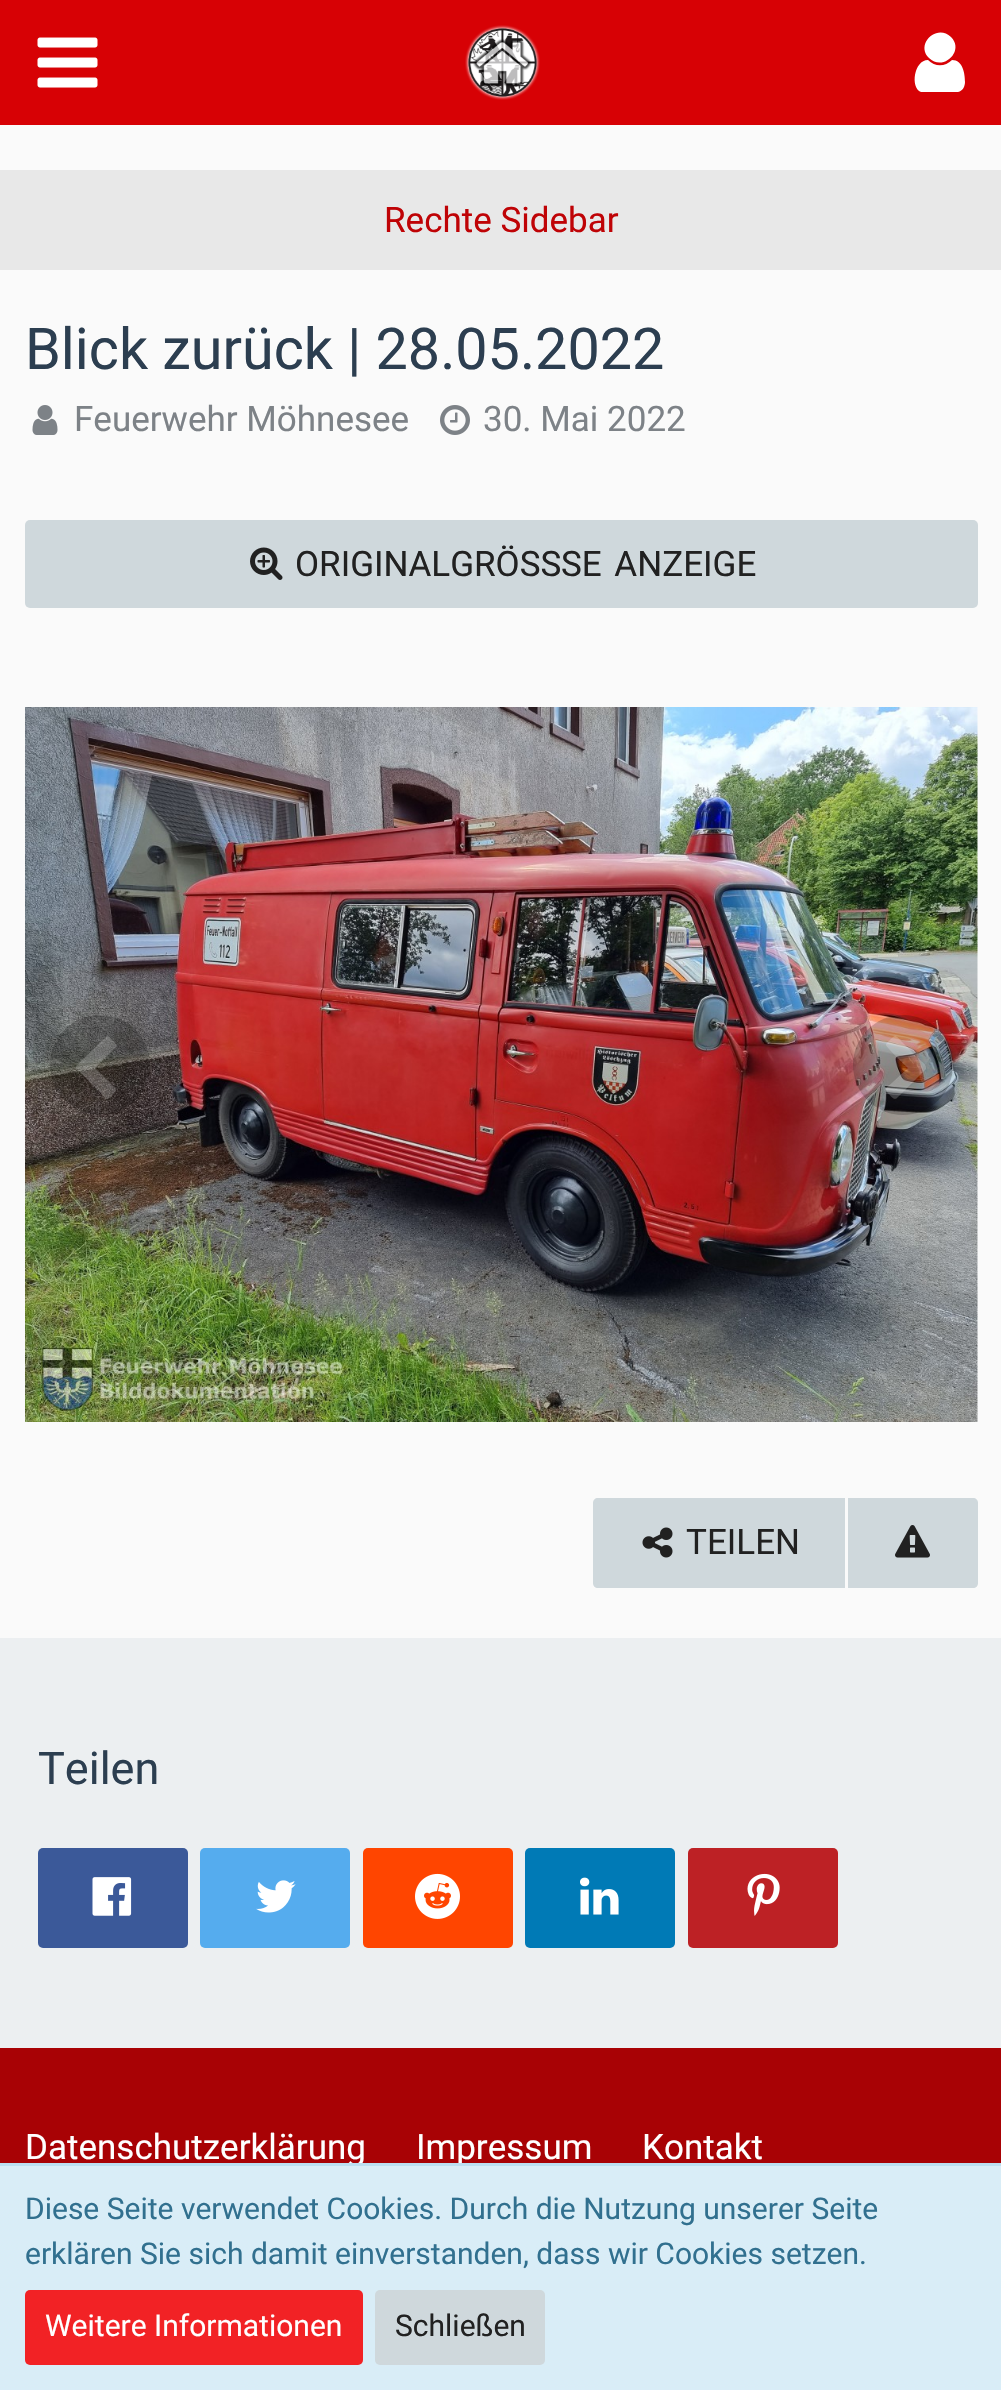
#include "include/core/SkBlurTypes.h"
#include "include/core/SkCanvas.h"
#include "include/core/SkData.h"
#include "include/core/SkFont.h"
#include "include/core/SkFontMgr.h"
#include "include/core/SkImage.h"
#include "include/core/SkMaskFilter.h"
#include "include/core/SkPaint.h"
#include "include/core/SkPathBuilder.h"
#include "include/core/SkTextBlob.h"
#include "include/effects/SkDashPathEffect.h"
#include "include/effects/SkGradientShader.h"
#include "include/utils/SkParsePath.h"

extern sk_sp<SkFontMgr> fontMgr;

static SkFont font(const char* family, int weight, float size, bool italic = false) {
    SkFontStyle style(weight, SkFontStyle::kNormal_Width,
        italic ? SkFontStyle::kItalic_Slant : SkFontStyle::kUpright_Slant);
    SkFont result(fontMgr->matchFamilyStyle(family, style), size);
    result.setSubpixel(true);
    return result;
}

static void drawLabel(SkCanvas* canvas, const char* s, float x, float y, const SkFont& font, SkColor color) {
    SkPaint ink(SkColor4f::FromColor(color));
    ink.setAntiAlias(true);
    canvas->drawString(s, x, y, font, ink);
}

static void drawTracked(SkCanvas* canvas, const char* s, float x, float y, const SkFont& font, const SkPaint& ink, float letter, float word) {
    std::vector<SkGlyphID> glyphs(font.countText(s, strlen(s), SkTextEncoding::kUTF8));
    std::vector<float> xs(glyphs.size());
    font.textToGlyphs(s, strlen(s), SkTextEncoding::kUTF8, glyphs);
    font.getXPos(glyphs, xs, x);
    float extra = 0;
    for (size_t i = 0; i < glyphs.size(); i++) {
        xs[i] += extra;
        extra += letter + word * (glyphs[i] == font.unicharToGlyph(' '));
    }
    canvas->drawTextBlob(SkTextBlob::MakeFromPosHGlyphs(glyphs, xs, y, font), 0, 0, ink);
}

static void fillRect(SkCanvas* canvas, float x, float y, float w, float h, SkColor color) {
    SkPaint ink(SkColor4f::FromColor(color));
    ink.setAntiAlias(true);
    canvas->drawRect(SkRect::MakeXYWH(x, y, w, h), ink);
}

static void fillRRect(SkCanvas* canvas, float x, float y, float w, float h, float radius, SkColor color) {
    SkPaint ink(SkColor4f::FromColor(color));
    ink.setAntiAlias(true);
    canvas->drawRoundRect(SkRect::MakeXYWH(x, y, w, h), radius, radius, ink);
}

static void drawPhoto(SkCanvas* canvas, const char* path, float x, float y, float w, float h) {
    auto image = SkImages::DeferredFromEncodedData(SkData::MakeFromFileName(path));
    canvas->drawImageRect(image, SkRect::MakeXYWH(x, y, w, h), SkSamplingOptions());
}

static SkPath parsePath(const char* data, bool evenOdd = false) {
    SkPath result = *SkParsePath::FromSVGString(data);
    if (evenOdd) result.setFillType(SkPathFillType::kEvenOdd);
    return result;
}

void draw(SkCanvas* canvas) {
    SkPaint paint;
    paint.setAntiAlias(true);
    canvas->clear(0xFFFAFAFA);
    fillRect(canvas, 0, 0, 1001, 125, 0xFFD70105);
    drawPhoto(canvas, "assets/img1.png", 37, 37, 61, 51);
    paint.setColor(0xFFFFFFFF);
    canvas->drawPath(parsePath("M965 82C965 86 963 91 958 92H929H921C910 88 914 60 928 60C935 67 945 67 952 60C963 60 965 74 965 82ZM951 37C965 51 943 72 929 58C915 44 937 23 951 37Z"), paint);
    drawPhoto(canvas, "assets/img2.png", 465, 25, 75, 75);
    fillRect(canvas, 0, 170, 1001, 100, 0xFFE8E8E8);
    SkFont font1 = font("Roboto", 400, 35);
    drawLabel(canvas, "Rechte Sidebar", 384, 232, font1, 0xFFBF0306);
    SkFont font2 = font("Roboto", 400, 57.5f);
    drawLabel(canvas, "Blick zurück | 28.05.2022", 25, 369, font2, 0xFF2C3E50);
    drawPhoto(canvas, "assets/img3.png", 32, 405, 26, 30);
    drawLabel(canvas, "Feuerwehr Möhnesee", 74, 431, font1, 0xFF7D8287);
    drawPhoto(canvas, "assets/img4.png", 440, 405, 30, 30);
    drawLabel(canvas, "30. Mai 2022", 483, 431, font1, 0xFF7D8287);
    fillRRect(canvas, 25, 520, 953, 88, 5, 0xFFCFD8DC);
    drawPhoto(canvas, "assets/img5.png", 250, 547, 33, 33);
    drawLabel(canvas, "ORIGINALGRÖSS", 295, 576, font1, 0xFF212121);
    paint.setColor(0xFF212121);
    drawTracked(canvas, "SE ANZEIGE", 561, 576, font1, paint, 0, 4);
    drawPhoto(canvas, "assets/img6.png", 25, 707, 953, 715);
    paint.setColor(0x33000000);
    canvas->drawCircle(100, 1065, 50, paint);
    paint.setColor(0x33FFFFFF);
    canvas->drawPath(parsePath("M116 1047L95 1068L112 1085C118 1091 117 1090 111 1096C106 1101 106 1099 101 1093L76 1068V1066L106 1037C108 1035 110 1038 111 1039L116 1044C117 1045 117 1046 116 1047Z"), paint);
    paint.setColor(0x33000000);
    canvas->drawCircle(903, 1065, 50, paint);
    paint.setColor(0x33FFFFFF);
    canvas->drawPath(parsePath("M926 1069L897 1098C894 1101 890 1095 889 1094C883 1088 887 1088 894 1081L908 1068C905 1065 886 1047 886 1045C886 1043 889 1041 890 1040C896 1034 895 1035 902 1042L921 1061C921 1061 927 1065 926 1068Z"), paint);
    paint.setColor(0xFFCFD8DC);
    canvas->drawPath(parsePath("M598 1498H845V1588H598C595 1588 593 1586 593 1583V1503C593 1500 595 1498 598 1498Z"), paint);
    drawPhoto(canvas, "assets/img7.png", 642, 1527, 31, 31);
    drawLabel(canvas, "TEILEN", 686, 1554, font1, 0xFF212121);
    canvas->drawPath(parsePath("M848 1498H973C976 1498 978 1500 978 1503V1583C978 1586 976 1588 973 1588H848Z"), paint);
    drawPhoto(canvas, "assets/img8.png", 895, 1525, 35, 33);
    fillRect(canvas, 0, 1638, 1001, 410, 0xFFECEFF1);
    SkFont font3 = font("Roboto", 400, 45);
    drawLabel(canvas, "Teilen", 38, 1784, font3, 0xFF2C3E50);
    fillRRect(canvas, 38, 1848, 150, 100, 5, 0xFF3B5999);
    drawPhoto(canvas, "assets/img9.png", 92, 1877, 40, 39);
    fillRRect(canvas, 200, 1848, 150, 100, 5, 0xFF55ACEE);
    drawPhoto(canvas, "assets/img10.png", 256, 1880, 40, 33);
    fillRRect(canvas, 363, 1848, 150, 100, 5, 0xFFFF4500);
    drawPhoto(canvas, "assets/img11.png", 415, 1873, 45, 46);
    fillRRect(canvas, 525, 1848, 150, 100, 5, 0xFF007AB6);
    drawPhoto(canvas, "assets/img12.png", 580, 1877, 39, 38);
    fillRRect(canvas, 688, 1848, 150, 100, 5, 0xFFBD2125);
    drawPhoto(canvas, "assets/img13.png", 747, 1873, 33, 43);
    fillRect(canvas, 0, 2048, 1001, 115, 0xFFA80205);
    drawLabel(canvas, "Datenschutzerklärung", 25, 2159, font1, 0xFFFFFFFF);
    drawLabel(canvas, "Impressum", 416, 2159, font1, 0xFFFFFFFF);
    drawLabel(canvas, "Kontakt", 642, 2159, font1, 0xFFFFFFFF);
    fillRect(canvas, 0, 2166, 1001, 224, 0xFFD9EDF7);
    fillRect(canvas, 0, 2163, 1001, 3, 0xFFBCDFF1);
    SkFont font4 = font("Roboto", 400, 30);
    drawLabel(canvas, "Diese Seite verwendet Cookies. Durch die Nutzung unserer Seite", 25, 2219, font4, 0xFF31708F);
    drawLabel(canvas, "erklären Sie sich damit einverstanden, dass wir Cookies setzen.", 25, 2264, font4, 0xFF31708F);
    fillRRect(canvas, 25, 2290, 338, 75, 5, 0xFFF22225);
    drawLabel(canvas, "Weitere Informationen", 45, 2336, font4, 0xFFFFFFFF);
    fillRRect(canvas, 375, 2290, 170, 75, 5, 0xFFCFD8DC);
    drawLabel(canvas, "Schließen", 395, 2336, font4, 0xFF212121);
}
